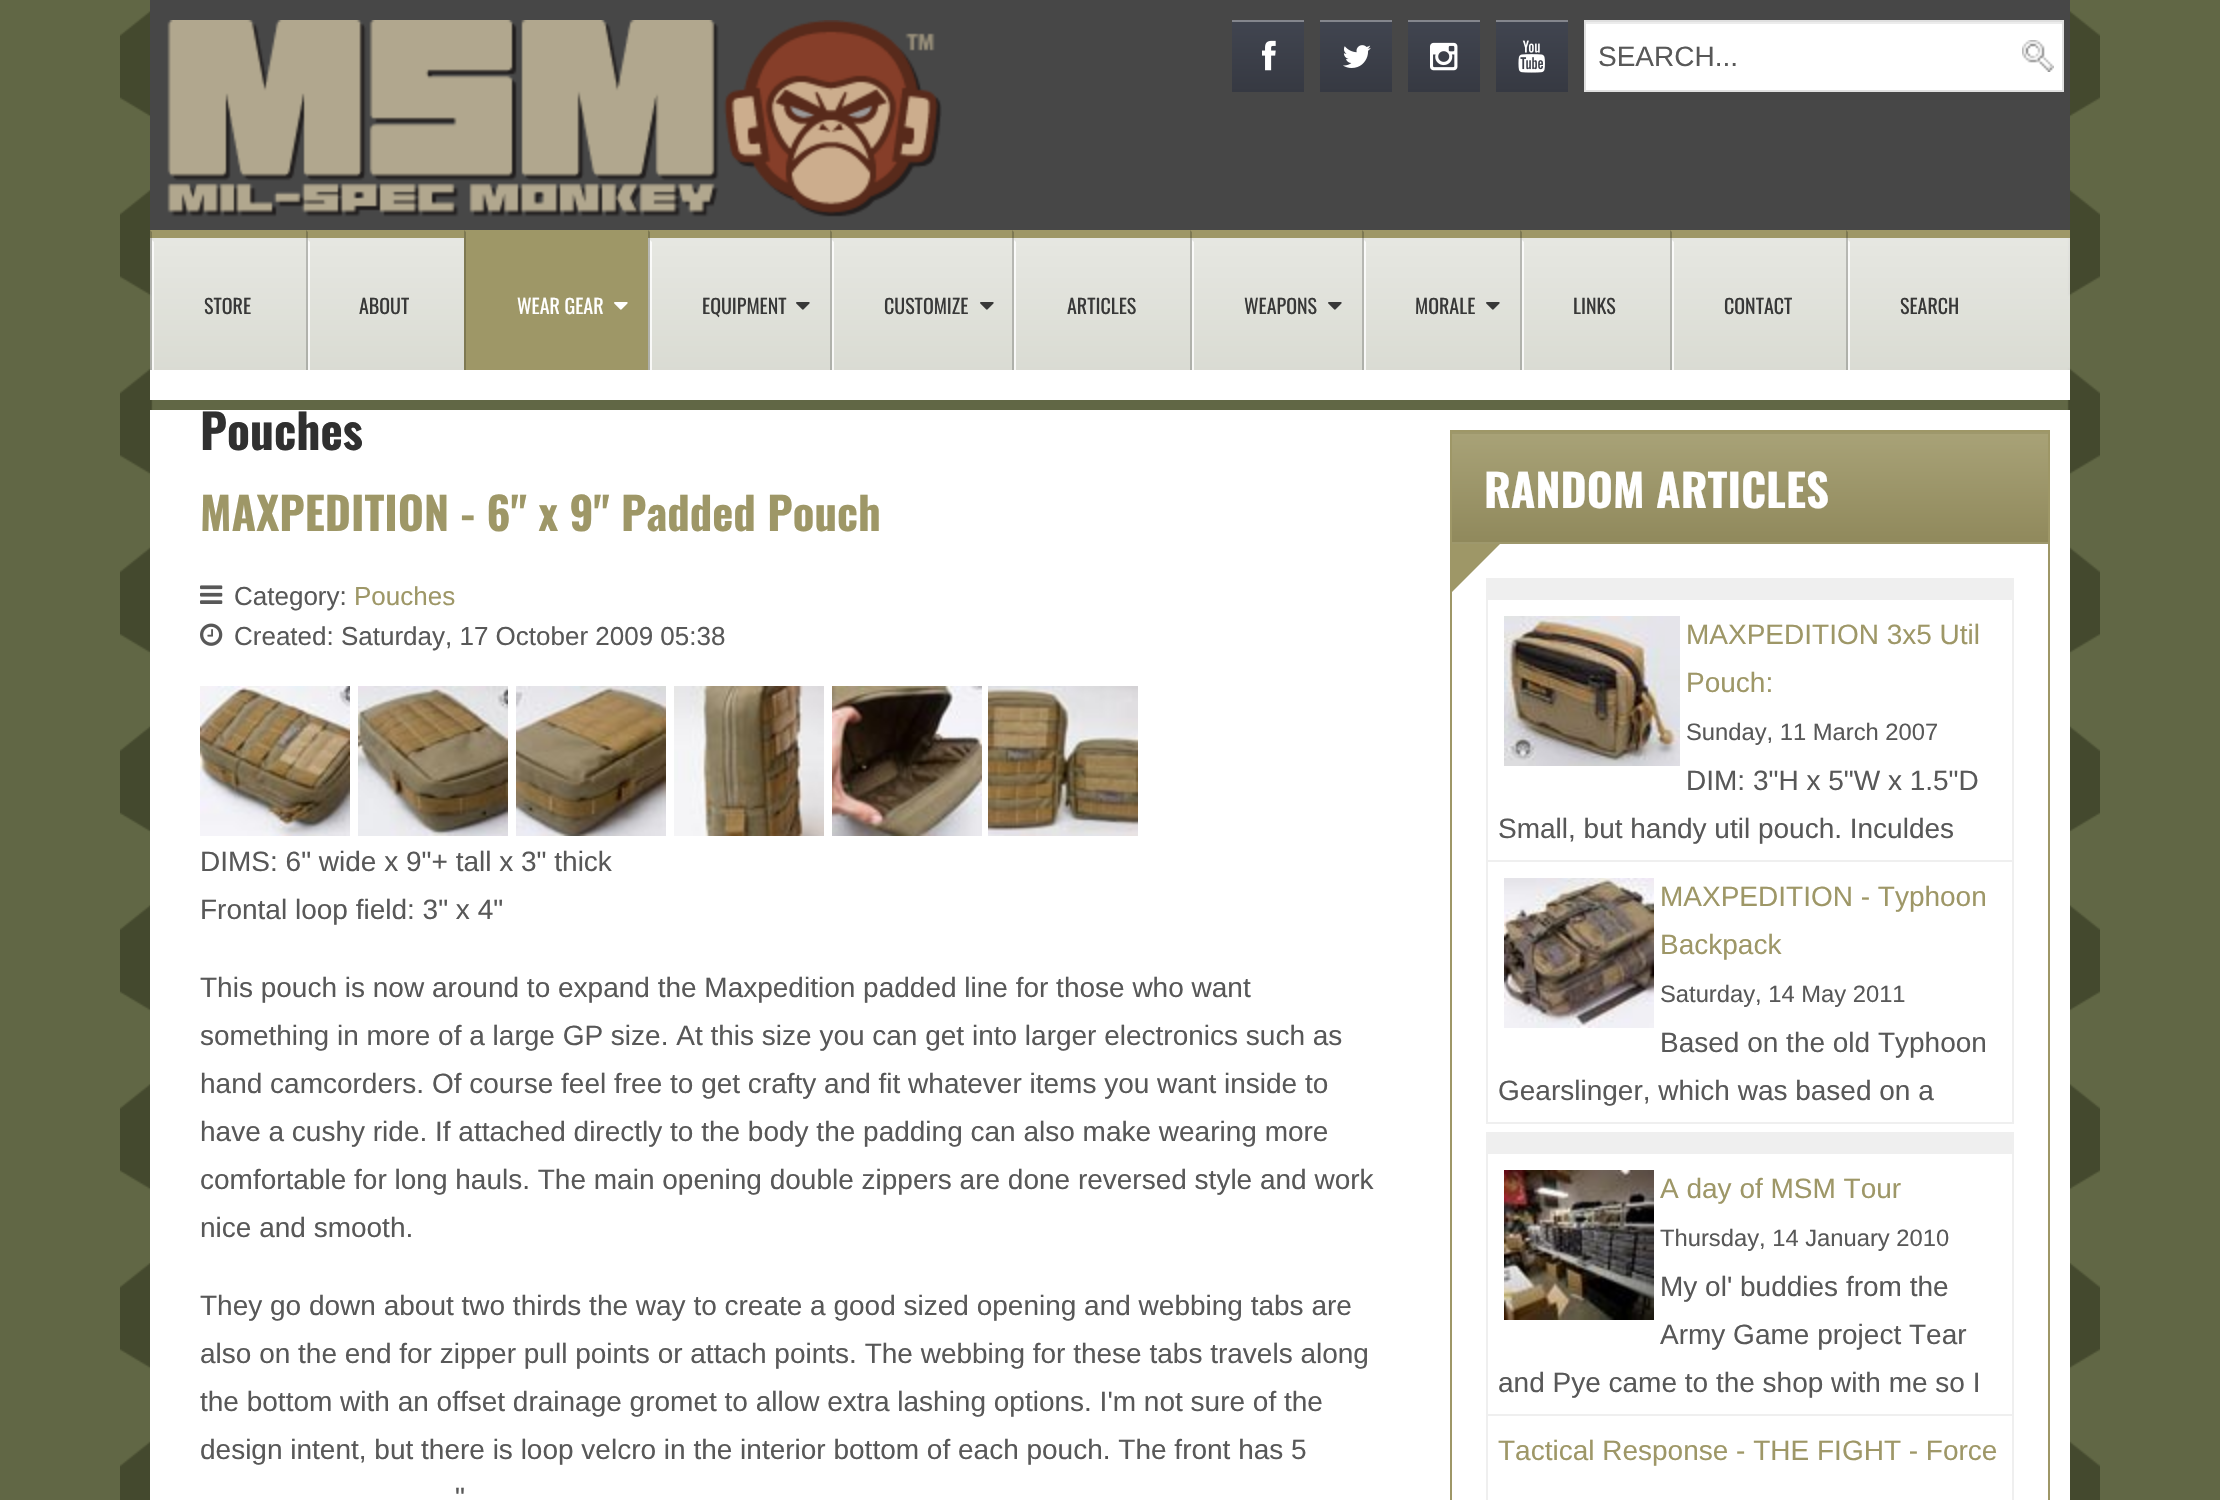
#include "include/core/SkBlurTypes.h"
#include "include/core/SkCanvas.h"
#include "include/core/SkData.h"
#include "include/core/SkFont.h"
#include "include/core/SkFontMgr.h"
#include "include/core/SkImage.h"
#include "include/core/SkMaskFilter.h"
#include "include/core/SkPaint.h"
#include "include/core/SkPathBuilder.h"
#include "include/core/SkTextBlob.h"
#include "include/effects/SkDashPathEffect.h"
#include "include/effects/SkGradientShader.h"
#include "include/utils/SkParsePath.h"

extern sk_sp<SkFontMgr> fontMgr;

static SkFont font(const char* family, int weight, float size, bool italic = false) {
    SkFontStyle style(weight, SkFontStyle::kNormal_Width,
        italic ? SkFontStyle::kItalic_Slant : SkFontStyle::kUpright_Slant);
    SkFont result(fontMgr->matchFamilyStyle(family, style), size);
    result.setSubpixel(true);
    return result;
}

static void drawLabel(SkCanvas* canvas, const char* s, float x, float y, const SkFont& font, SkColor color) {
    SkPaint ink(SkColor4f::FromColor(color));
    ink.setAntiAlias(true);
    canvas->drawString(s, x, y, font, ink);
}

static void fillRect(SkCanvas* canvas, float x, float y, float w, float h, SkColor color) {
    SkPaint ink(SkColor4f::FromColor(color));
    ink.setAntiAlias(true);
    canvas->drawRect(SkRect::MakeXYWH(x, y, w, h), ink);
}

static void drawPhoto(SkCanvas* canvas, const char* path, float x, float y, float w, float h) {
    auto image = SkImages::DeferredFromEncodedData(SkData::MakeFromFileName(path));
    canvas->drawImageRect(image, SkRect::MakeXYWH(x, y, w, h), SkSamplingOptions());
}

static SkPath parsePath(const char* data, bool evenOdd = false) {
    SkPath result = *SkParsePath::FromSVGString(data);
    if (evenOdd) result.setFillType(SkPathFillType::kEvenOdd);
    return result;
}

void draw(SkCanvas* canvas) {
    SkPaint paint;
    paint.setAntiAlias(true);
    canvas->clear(0xFF616745);
    drawPhoto(canvas, "assets/img1.png", 120, 10, 1980, 1490);
    fillRect(canvas, 150, 0, 1920, 230, 0xFF474747);
    {
        const SkColor colors[] = {0xFF414550, 0xFF363942};
        const float stops[] = {0, 1};
        const SkPoint ends[] = {{1268, 20}, {1268, 92}};
        paint.setShader(SkGradientShader::MakeLinear(ends, colors, stops, 2, SkTileMode::kClamp));
        paint.setAlpha(255);
    }
    canvas->drawRect(SkRect::MakeXYWH(1232, 22, 72, 70), paint);
    fillRect(canvas, 1232, 20, 72, 2, 0xFF84868D);
    drawPhoto(canvas, "assets/img2.png", 1262, 40, 14, 31);
    {
        const SkColor colors[] = {0xFF414550, 0xFF363942};
        const float stops[] = {0, 1};
        const SkPoint ends[] = {{1356, 20}, {1356, 92}};
        paint.setShader(SkGradientShader::MakeLinear(ends, colors, stops, 2, SkTileMode::kClamp));
        paint.setAlpha(255);
    }
    canvas->drawRect(SkRect::MakeXYWH(1320, 22, 72, 70), paint);
    fillRect(canvas, 1320, 20, 72, 2, 0xFF84868D);
    drawPhoto(canvas, "assets/img3.png", 1343, 45, 28, 23);
    {
        const SkColor colors[] = {0xFF414550, 0xFF363942};
        const float stops[] = {0, 1};
        const SkPoint ends[] = {{1444, 20}, {1444, 92}};
        paint.setShader(SkGradientShader::MakeLinear(ends, colors, stops, 2, SkTileMode::kClamp));
        paint.setAlpha(255);
    }
    canvas->drawRect(SkRect::MakeXYWH(1408, 22, 72, 70), paint);
    fillRect(canvas, 1408, 20, 72, 2, 0xFF84868D);
    drawPhoto(canvas, "assets/img4.png", 1430, 42, 28, 29);
    {
        const SkColor colors[] = {0xFF414550, 0xFF363942};
        const float stops[] = {0, 1};
        const SkPoint ends[] = {{1532, 20}, {1532, 92}};
        paint.setShader(SkGradientShader::MakeLinear(ends, colors, stops, 2, SkTileMode::kClamp));
        paint.setAlpha(255);
    }
    canvas->drawRect(SkRect::MakeXYWH(1496, 22, 72, 70), paint);
    fillRect(canvas, 1496, 20, 72, 2, 0xFF84868D);
    drawPhoto(canvas, "assets/img5.png", 1518, 40, 27, 33);
    fillRect(canvas, 1586, 24, 476, 66, 0xFFFFFFFF);
    drawPhoto(canvas, "assets/img6.png", 2022, 40, 32, 32);
    fillRect(canvas, 1586, 22, 476, 2, 0xFFECECEC);
    paint.setStroke(true);
    paint.setStrokeWidth(2);
    paint.setShader(nullptr);
    paint.setColor(0xFFDFDFDF);
    canvas->drawRect(SkRect::MakeXYWH(1585, 21, 478, 70), paint);
    SkFont font1 = font("Liberation Sans", 400, 28);
    drawLabel(canvas, "SEARCH...", 1598, 66, font1, 0xFF585858);
    fillRect(canvas, 150, 238, 1920, 132, 0x33FFFFFF);
    paint.setStroke(false);
    {
        const SkColor colors[] = {0xCCFFFFFF, 0xB3FFFFFF};
        const float stops[] = {0, 1};
        const SkPoint ends[] = {{1110, 238}, {1110, 370}};
        paint.setShader(SkGradientShader::MakeLinear(ends, colors, stops, 2, SkTileMode::kClamp));
        paint.setAlpha(255);
    }
    canvas->drawRect(SkRect::MakeXYWH(150, 238, 1920, 132), paint);
    fillRect(canvas, 150, 230, 1920, 8, 0xFF9E9767);
    drawPhoto(canvas, "assets/img7.png", 167, 20, 775, 197);
    paint.setShader(nullptr);
    paint.setColor(0x33000000);
    canvas->drawPath(parsePath("M150 370V230L152 232V370Z"), paint);
    paint.setColor(0xCCFFFFFF);
    canvas->drawPath(parsePath("M152 370V240L154 242V370Z"), paint);
    SkFont font2 = font("Oswald", 400, 20);
    drawLabel(canvas, "STORE", 204, 314, font2, 0xFF383838);
    paint.setColor(0x33000000);
    canvas->drawPath(parsePath("M306 370V230L308 232V370Z"), paint);
    paint.setColor(0xCCFFFFFF);
    canvas->drawPath(parsePath("M308 370V240L310 242V370Z"), paint);
    drawLabel(canvas, "ABOUT", 359, 314, font2, 0xFF383838);
    fillRect(canvas, 464, 238, 184, 132, 0xFF9E9767);
    paint.setColor(0xFF7E7952);
    canvas->drawPath(parsePath("M464 370V230L466 232V370Z"), paint);
    drawLabel(canvas, "WEAR GEAR", 517, 314, font2, 0xFFFFFFFF);
    drawPhoto(canvas, "assets/img8.png", 614, 302, 14, 8);
    paint.setColor(0x33000000);
    canvas->drawPath(parsePath("M648 370V230L650 232V370Z"), paint);
    paint.setColor(0xCCFFFFFF);
    canvas->drawPath(parsePath("M650 370V240L652 242V370Z"), paint);
    drawLabel(canvas, "EQUIPMENT", 702, 314, font2, 0xFF383838);
    drawPhoto(canvas, "assets/img9.png", 796, 302, 14, 8);
    paint.setColor(0x33000000);
    canvas->drawPath(parsePath("M830 370V230L832 232V370Z"), paint);
    paint.setColor(0xCCFFFFFF);
    canvas->drawPath(parsePath("M832 370V240L834 242V370Z"), paint);
    drawLabel(canvas, "CUSTOMIZE", 884, 314, font2, 0xFF383838);
    drawPhoto(canvas, "assets/img9.png", 980, 302, 14, 8);
    paint.setColor(0x33000000);
    canvas->drawPath(parsePath("M1012 370V230L1014 232V370Z"), paint);
    paint.setColor(0xCCFFFFFF);
    canvas->drawPath(parsePath("M1014 370V240L1016 242V370Z"), paint);
    drawLabel(canvas, "ARTICLES", 1067, 314, font2, 0xFF383838);
    paint.setColor(0x33000000);
    canvas->drawPath(parsePath("M1190 370V230L1192 232V370Z"), paint);
    paint.setColor(0xCCFFFFFF);
    canvas->drawPath(parsePath("M1192 370V240L1194 242V370Z"), paint);
    drawLabel(canvas, "WEAPONS", 1244, 314, font2, 0xFF383838);
    drawPhoto(canvas, "assets/img9.png", 1328, 302, 14, 8);
    paint.setColor(0x33000000);
    canvas->drawPath(parsePath("M1362 370V230L1364 232V370Z"), paint);
    paint.setColor(0xCCFFFFFF);
    canvas->drawPath(parsePath("M1364 370V240L1366 242V370Z"), paint);
    drawLabel(canvas, "MORALE", 1415, 314, font2, 0xFF383838);
    drawPhoto(canvas, "assets/img9.png", 1486, 302, 14, 8);
    paint.setColor(0x33000000);
    canvas->drawPath(parsePath("M1520 370V230L1522 232V370Z"), paint);
    paint.setColor(0xCCFFFFFF);
    canvas->drawPath(parsePath("M1522 370V240L1524 242V370Z"), paint);
    drawLabel(canvas, "LINKS", 1573, 314, font2, 0xFF383838);
    paint.setColor(0x33000000);
    canvas->drawPath(parsePath("M1670 370V230L1672 232V370Z"), paint);
    paint.setColor(0xCCFFFFFF);
    canvas->drawPath(parsePath("M1672 370V240L1674 242V370Z"), paint);
    drawLabel(canvas, "CONTACT", 1724, 314, font2, 0xFF383838);
    paint.setColor(0x33000000);
    canvas->drawPath(parsePath("M1846 370V230L1848 232V370Z"), paint);
    paint.setColor(0xCCFFFFFF);
    canvas->drawPath(parsePath("M1848 370V240L1850 242V370Z"), paint);
    drawLabel(canvas, "SEARCH", 1900, 314, font2, 0xFF383838);
    fillRect(canvas, 150, 370, 1920, 30, 0xFFFFFFFF);
    fillRect(canvas, 150, 410, 1920, 1090, 0xFFFFFFFF);
    SkFont font3 = font("Oswald", 700, 47.5f);
    drawLabel(canvas, "Pouches", 200, 450, font3, 0xFF303030);
    SkFont font4 = font("Oswald", 700, 44.75f);
    drawLabel(canvas, "MAXPEDITION - 6\" x 9\" Padded Pouch", 200, 531, font4, 0xFF9E9767);
    drawPhoto(canvas, "assets/img10.png", 200, 585, 23, 19);
    SkFont font5 = font("Liberation Sans", 400, 26);
    drawLabel(canvas, "Category:", 234, 605, font5, 0xFF585858);
    drawLabel(canvas, "Pouches", 354, 605, font5, 0xFF9E9767);
    drawPhoto(canvas, "assets/img11.png", 200, 623, 23, 23);
    drawLabel(canvas, "Created: Saturday, 17 October 2009 05:38", 234, 645, font5, 0xFF585858);
    drawPhoto(canvas, "assets/img12.png", 200, 686, 150, 150);
    drawPhoto(canvas, "assets/img13.png", 358, 686, 150, 150);
    drawPhoto(canvas, "assets/img14.png", 516, 686, 150, 150);
    drawPhoto(canvas, "assets/img15.png", 674, 686, 150, 150);
    drawPhoto(canvas, "assets/img16.png", 832, 686, 150, 150);
    drawPhoto(canvas, "assets/img17.png", 988, 686, 150, 150);
    drawLabel(canvas, "DIMS: 6\" wide x 9\"+ tall x 3\" thick", 200, 871, font1, 0xFF585858);
    drawLabel(canvas, "Frontal loop field: 3\" x 4\"", 200, 919, font1, 0xFF585858);
    drawLabel(canvas, "This pouch is now around to expand the Maxpedition padded line for those who want", 200, 997, font1, 0xFF585858);
    drawLabel(canvas, "something in more of a large GP size. At this size you can get into larger electronics such as", 200, 1045, font1, 0xFF585858);
    drawLabel(canvas, "hand camcorders. Of course feel free to get crafty and fit whatever items you want inside to", 200, 1093, font1, 0xFF585858);
    drawLabel(canvas, "have a cushy ride. If attached directly to the body the padding can also make wearing more", 200, 1141, font1, 0xFF585858);
    drawLabel(canvas, "comfortable for long hauls. The main opening double zippers are done reversed style and work", 200, 1189, font1, 0xFF585858);
    drawLabel(canvas, "nice and smooth.", 200, 1237, font1, 0xFF585858);
    drawLabel(canvas, "They go down about two thirds the way to create a good sized opening and webbing tabs are", 200, 1315, font1, 0xFF585858);
    drawLabel(canvas, "also on the end for zipper pull points or attach points. The webbing for these tabs travels along", 200, 1363, font1, 0xFF585858);
    drawLabel(canvas, "the bottom with an offset drainage gromet to allow extra lashing options. I'm not sure of the", 200, 1411, font1, 0xFF585858);
    drawLabel(canvas, "design intent, but there is loop velcro in the interior bottom of each pouch. The front has 5", 200, 1459, font1, 0xFF585858);
    drawLabel(canvas, "\"", 455, 1507, font1, 0xFF585858);
    paint.setStroke(true);
    paint.setColor(0xFF9E9767);
    canvas->drawRect(SkRect::MakeXYWH(1451, 431, 598, 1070), paint);
    paint.setStroke(false);
    canvas->drawPath(parsePath("M1452 432H1612L1452 592Z"), paint);
    fillRect(canvas, 1452, 432, 596, 112, 0xFF9E986C);
    {
        const SkColor colors[] = {0xFFA8A277, 0xFF90895C};
        const float stops[] = {0, 1};
        const SkPoint ends[] = {{1750, 434}, {1750, 542}};
        paint.setShader(SkGradientShader::MakeLinear(ends, colors, stops, 2, SkTileMode::kClamp));
        paint.setAlpha(255);
    }
    canvas->drawRect(SkRect::MakeXYWH(1452, 434, 596, 108), paint);
    drawLabel(canvas, "RANDOM ARTICLES", 1484, 508, font4, 0xFFFFFFFF);
    fillRect(canvas, 1486, 578, 528, 22, 0xFFEFEFEF);
    fillRect(canvas, 2012, 600, 2, 524, 0xFFEFEFEF);
    fillRect(canvas, 1486, 860, 528, 2, 0xFFEFEFEF);
    fillRect(canvas, 1486, 600, 2, 262, 0xFFEFEFEF);
    drawPhoto(canvas, "assets/img18.png", 1504, 616, 176, 150);
    drawLabel(canvas, "MAXPEDITION 3x5 Util", 1686, 644, font1, 0xFF9E9767);
    drawLabel(canvas, "Pouch:", 1686, 692, font1, 0xFF9E9767);
    SkFont font6 = font("Liberation Sans", 400, 23.75f);
    drawLabel(canvas, "Sunday, 11 March 2007", 1686, 740, font6, 0xFF585858);
    drawLabel(canvas, "DIM: 3\"H x 5\"W x 1.5\"D", 1686, 790, font1, 0xFF585858);
    drawLabel(canvas, "Small, but handy util pouch. Inculdes", 1498, 838, font1, 0xFF585858);
    fillRect(canvas, 1486, 1122, 528, 2, 0xFFEFEFEF);
    fillRect(canvas, 1486, 862, 2, 262, 0xFFEFEFEF);
    drawPhoto(canvas, "assets/img19.png", 1504, 878, 150, 150);
    drawLabel(canvas, "MAXPEDITION - Typhoon", 1660, 906, font1, 0xFF9E9767);
    drawLabel(canvas, "Backpack", 1660, 954, font1, 0xFF9E9767);
    drawLabel(canvas, "Saturday, 14 May 2011", 1660, 1002, font6, 0xFF585858);
    drawLabel(canvas, "Based on the old Typhoon", 1660, 1052, font1, 0xFF585858);
    drawLabel(canvas, "Gearslinger, which was based on a", 1498, 1100, font1, 0xFF585858);
    fillRect(canvas, 1486, 1132, 528, 22, 0xFFEFEFEF);
    fillRect(canvas, 2012, 1154, 2, 346, 0xFFEFEFEF);
    fillRect(canvas, 1486, 1414, 528, 2, 0xFFEFEFEF);
    fillRect(canvas, 1486, 1154, 2, 346, 0xFFEFEFEF);
    drawPhoto(canvas, "assets/img20.png", 1504, 1170, 150, 150);
    drawLabel(canvas, "A day of MSM Tour", 1660, 1198, font1, 0xFF9E9767);
    drawLabel(canvas, "Thursday, 14 January 2010", 1660, 1246, font6, 0xFF585858);
    drawLabel(canvas, "My ol' buddies from the", 1660, 1296, font1, 0xFF585858);
    drawLabel(canvas, "Army Game project Tear", 1660, 1344, font1, 0xFF585858);
    drawLabel(canvas, "and Pye came to the shop with me so I", 1498, 1392, font1, 0xFF585858);
    drawLabel(canvas, "Tactical Response - THE FIGHT - Force", 1498, 1460, font1, 0xFF9E9767);
}
